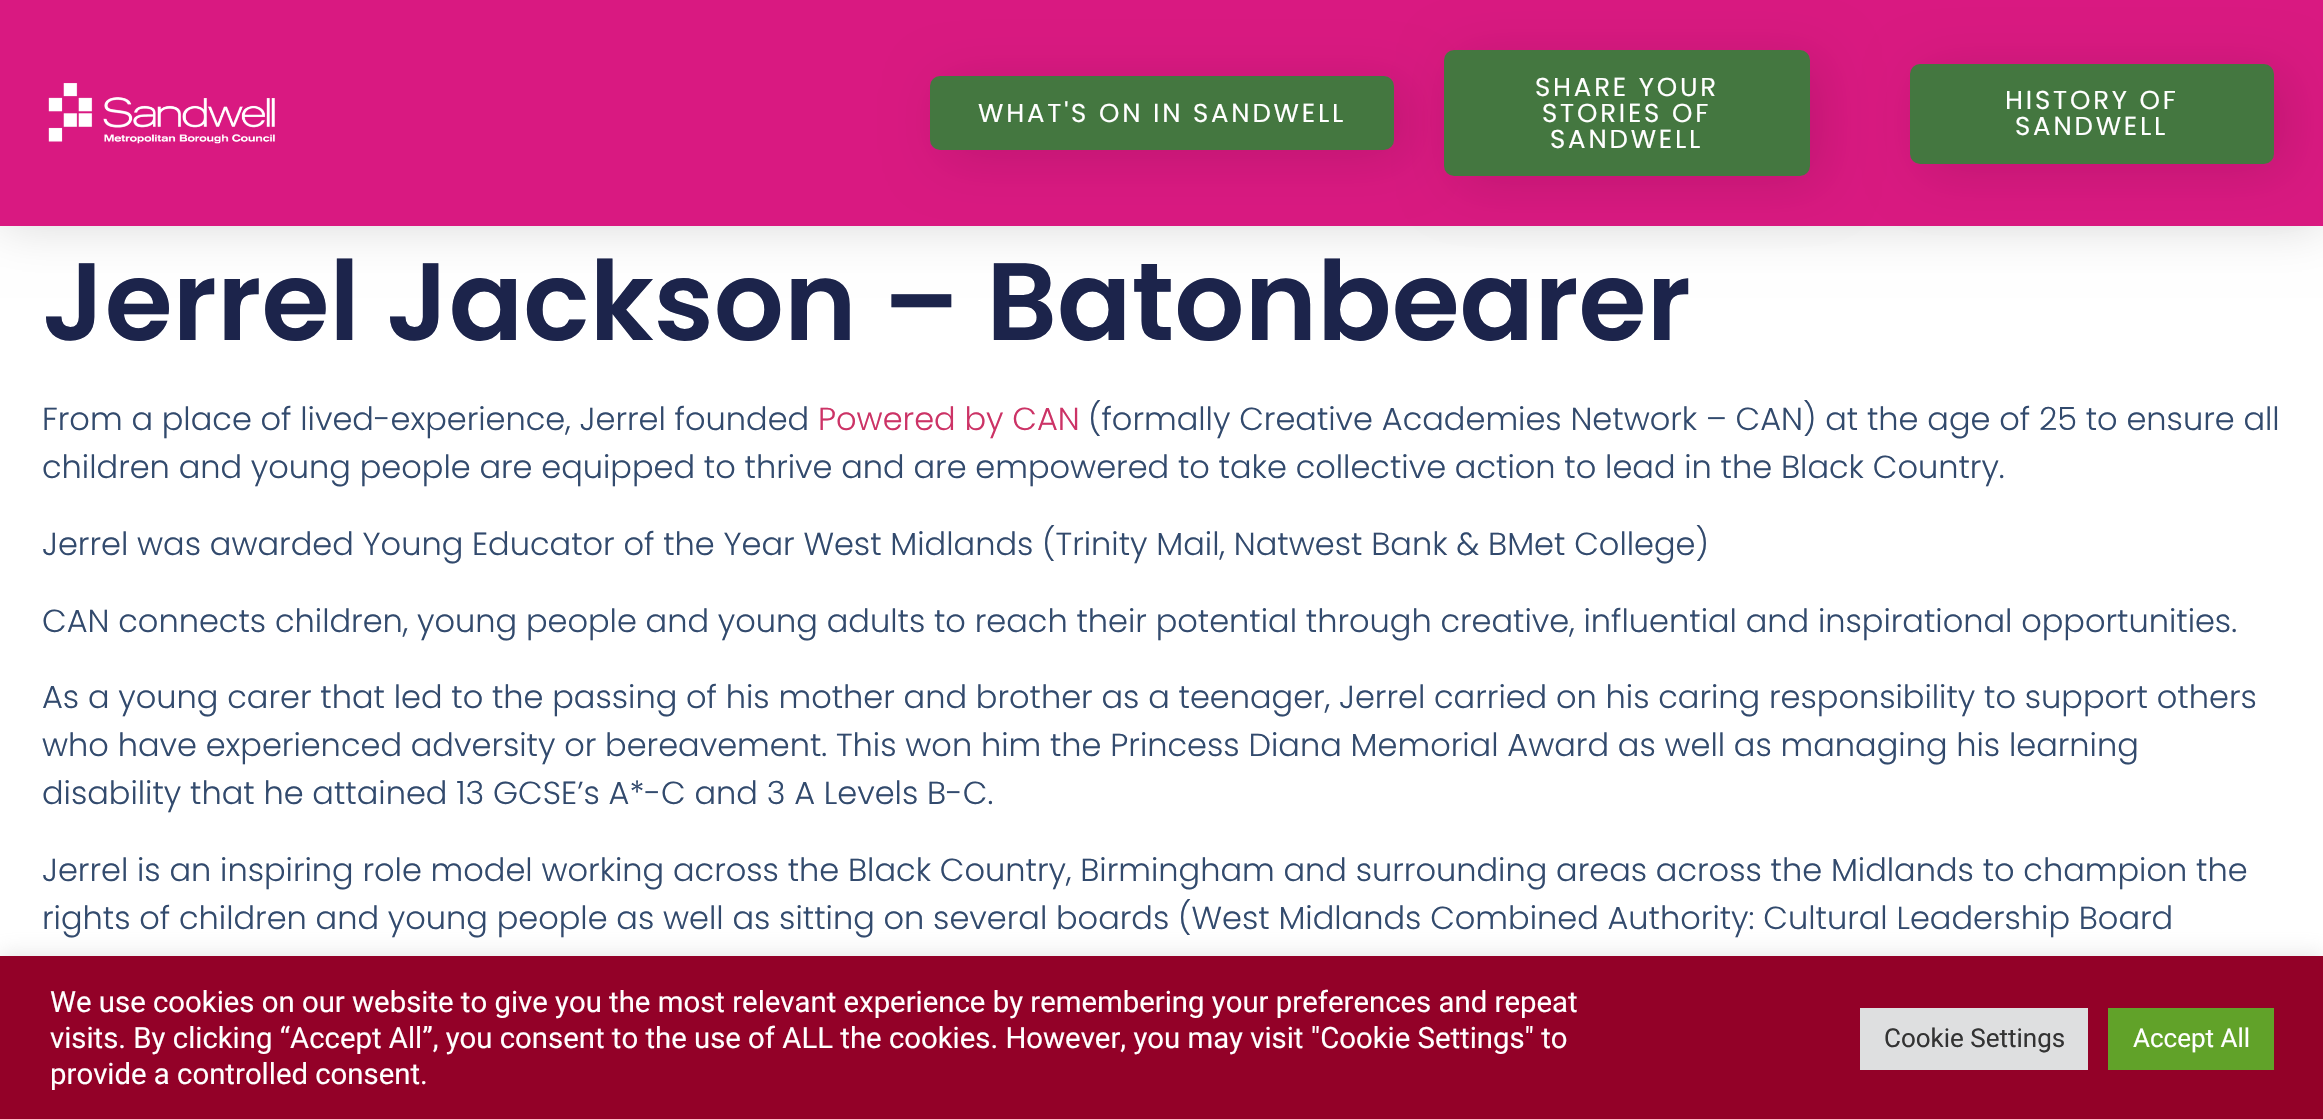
#include "include/core/SkBlurTypes.h"
#include "include/core/SkCanvas.h"
#include "include/core/SkData.h"
#include "include/core/SkFont.h"
#include "include/core/SkFontMgr.h"
#include "include/core/SkImage.h"
#include "include/core/SkMaskFilter.h"
#include "include/core/SkPaint.h"
#include "include/core/SkPathBuilder.h"
#include "include/core/SkTextBlob.h"
#include "include/effects/SkDashPathEffect.h"
#include "include/effects/SkGradientShader.h"
#include "include/utils/SkParsePath.h"

extern sk_sp<SkFontMgr> fontMgr;

static SkFont font(const char* family, int weight, float size, bool italic = false) {
    SkFontStyle style(weight, SkFontStyle::kNormal_Width,
        italic ? SkFontStyle::kItalic_Slant : SkFontStyle::kUpright_Slant);
    SkFont result(fontMgr->matchFamilyStyle(family, style), size);
    result.setSubpixel(true);
    return result;
}

static void drawLabel(SkCanvas* canvas, const char* s, float x, float y, const SkFont& font, SkColor color) {
    SkPaint ink(SkColor4f::FromColor(color));
    ink.setAntiAlias(true);
    canvas->drawString(s, x, y, font, ink);
}

static void drawTracked(SkCanvas* canvas, const char* s, float x, float y, const SkFont& font, const SkPaint& ink, float letter, float word) {
    std::vector<SkGlyphID> glyphs(font.countText(s, strlen(s), SkTextEncoding::kUTF8));
    std::vector<float> xs(glyphs.size());
    font.textToGlyphs(s, strlen(s), SkTextEncoding::kUTF8, glyphs);
    font.getXPos(glyphs, xs, x);
    float extra = 0;
    for (size_t i = 0; i < glyphs.size(); i++) {
        xs[i] += extra;
        extra += letter + word * (glyphs[i] == font.unicharToGlyph(' '));
    }
    canvas->drawTextBlob(SkTextBlob::MakeFromPosHGlyphs(glyphs, xs, y, font), 0, 0, ink);
}

static void fillRect(SkCanvas* canvas, float x, float y, float w, float h, SkColor color) {
    SkPaint ink(SkColor4f::FromColor(color));
    ink.setAntiAlias(true);
    canvas->drawRect(SkRect::MakeXYWH(x, y, w, h), ink);
}

static void fillRRect(SkCanvas* canvas, float x, float y, float w, float h, float radius, SkColor color) {
    SkPaint ink(SkColor4f::FromColor(color));
    ink.setAntiAlias(true);
    canvas->drawRoundRect(SkRect::MakeXYWH(x, y, w, h), radius, radius, ink);
}

static void drawPhoto(SkCanvas* canvas, const char* path, float x, float y, float w, float h) {
    auto image = SkImages::DeferredFromEncodedData(SkData::MakeFromFileName(path));
    canvas->drawImageRect(image, SkRect::MakeXYWH(x, y, w, h), SkSamplingOptions());
}

void draw(SkCanvas* canvas) {
    SkPaint paint;
    paint.setAntiAlias(true);
    canvas->clear(0xFFFFFFFF);
    paint.setColor(0x26000000);
    paint.setMaskFilter(SkMaskFilter::MakeBlur(kNormal_SkBlurStyle, 24));
    canvas->drawRect(SkRect::MakeXYWH(0, 0, 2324, 226), paint);
    paint.setMaskFilter(nullptr);
    fillRect(canvas, 0, 0, 2323, 226, 0xFFD91981);
    drawPhoto(canvas, "assets/img1.png", 48, 83, 227, 61);
    paint.setColor(0x1F000000);
    paint.setMaskFilter(SkMaskFilter::MakeBlur(kNormal_SkBlurStyle, 27));
    canvas->drawRoundRect(SkRect::MakeXYWH(942, 84, 464, 74), 10, 10, paint);
    paint.setMaskFilter(nullptr);
    fillRRect(canvas, 930, 76, 464, 74, 10, 0xFF447740);
    SkFont font1 = font("Poppins", 400, 26);
    paint.setColor(0xFFFFFFFF);
    drawTracked(canvas, "WHAT'S ON IN SANDWELL", 978, 122, font1, paint, 2.8f, 0);
    paint.setColor(0x1F000000);
    paint.setMaskFilter(SkMaskFilter::MakeBlur(kNormal_SkBlurStyle, 27));
    canvas->drawRoundRect(SkRect::MakeXYWH(1456, 58, 366, 126), 10, 10, paint);
    paint.setMaskFilter(nullptr);
    fillRRect(canvas, 1444, 50, 366, 126, 10, 0xFF447740);
    paint.setColor(0xFFFFFFFF);
    drawTracked(canvas, "SHARE YOUR", 1535, 96, font1, paint, 2.8f, 0);
    drawTracked(canvas, "STORIES OF", 1542, 122, font1, paint, 2.8f, 0);
    drawTracked(canvas, "SANDWELL", 1550, 148, font1, paint, 2.8f, 0);
    paint.setColor(0x1F000000);
    paint.setMaskFilter(SkMaskFilter::MakeBlur(kNormal_SkBlurStyle, 27));
    canvas->drawRoundRect(SkRect::MakeXYWH(1922, 72, 364, 100), 10, 10, paint);
    paint.setMaskFilter(nullptr);
    fillRRect(canvas, 1910, 64, 364, 100, 10, 0xFF447740);
    paint.setColor(0xFFFFFFFF);
    drawTracked(canvas, "HISTORY OF", 2005, 109, font1, paint, 2.8f, 0);
    drawTracked(canvas, "SANDWELL", 2015, 135, font1, paint, 2.8f, 0);
    SkFont font2 = font("Poppins", 600, 110);
    drawLabel(canvas, "Jerrel Jackson – Batonbearer", 42, 340, font2, 0xFF1C244B);
    SkFont font3 = font("Poppins", 300, 32);
    drawLabel(canvas, "From a place of lived-experience, Jerrel founded", 42, 430, font3, 0xFF324A6D);
    drawLabel(canvas, "Powered by CAN", 818, 430, font3, 0xFFCC3366);
    drawLabel(canvas, "(formally Creative Academies Network – CAN) at the age of 25 to ensure all", 1088, 430, font3, 0xFF324A6D);
    drawLabel(canvas, "children and young people are equipped to thrive and are empowered to take collective action to lead in the Black Country.", 42, 478, font3, 0xFF324A6D);
    drawLabel(canvas, "Jerrel was awarded Young Educator of the Year West Midlands (Trinity Mail, Natwest Bank & BMet College)", 42, 555, font3, 0xFF324A6D);
    drawLabel(canvas, "CAN connects children, young people and young adults to reach their potential through creative, influential and inspirational opportunities.", 42, 632, font3, 0xFF324A6D);
    drawLabel(canvas, "As a young carer that led to the passing of his mother and brother as a teenager, Jerrel carried on his caring responsibility to support others", 42, 708, font3, 0xFF324A6D);
    drawLabel(canvas, "who have experienced adversity or bereavement. This won him the Princess Diana Memorial Award as well as managing his learning", 42, 756, font3, 0xFF324A6D);
    drawLabel(canvas, "disability that he attained 13 GCSE’s A*-C and 3 A Levels B-C.", 42, 804, font3, 0xFF324A6D);
    drawLabel(canvas, "Jerrel is an inspiring role model working across the Black Country, Birmingham and surrounding areas across the Midlands to champion the", 42, 881, font3, 0xFF324A6D);
    drawLabel(canvas, "rights of children and young people as well as sitting on several boards (West Midlands Combined Authority: Cultural Leadership Board", 42, 929, font3, 0xFF324A6D);
    paint.setColor(0x4DACABAB);
    paint.setMaskFilter(SkMaskFilter::MakeBlur(kNormal_SkBlurStyle, 10));
    canvas->drawRect(SkRect::MakeXYWH(0, 954, 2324, 164), paint);
    paint.setMaskFilter(nullptr);
    fillRect(canvas, 0, 956, 2323, 163, 0xFF930128);
    SkFont font4 = font("Roboto", 400, 29.33f);
    drawLabel(canvas, "We use cookies on our website to give you the most relevant experience by remembering your preferences and repeat", 50, 1012, font4, 0xFFFFFFFF);
    drawLabel(canvas, "visits. By clicking “Accept All”, you consent to the use of ALL the cookies. However, you may visit \"Cookie Settings\" to", 50, 1048, font4, 0xFFFFFFFF);
    drawLabel(canvas, "provide a controlled consent.", 50, 1084, font4, 0xFFFFFFFF);
    fillRect(canvas, 1860, 1008, 228, 62, 0xFFDEDFE0);
    SkFont font5 = font("Roboto", 400, 26);
    drawLabel(canvas, "Cookie Settings", 1884, 1047, font5, 0xFF333333);
    fillRect(canvas, 2108, 1008, 166, 62, 0xFF61A229);
    drawLabel(canvas, "Accept All", 2133, 1047, font5, 0xFFFFFFFF);
}
